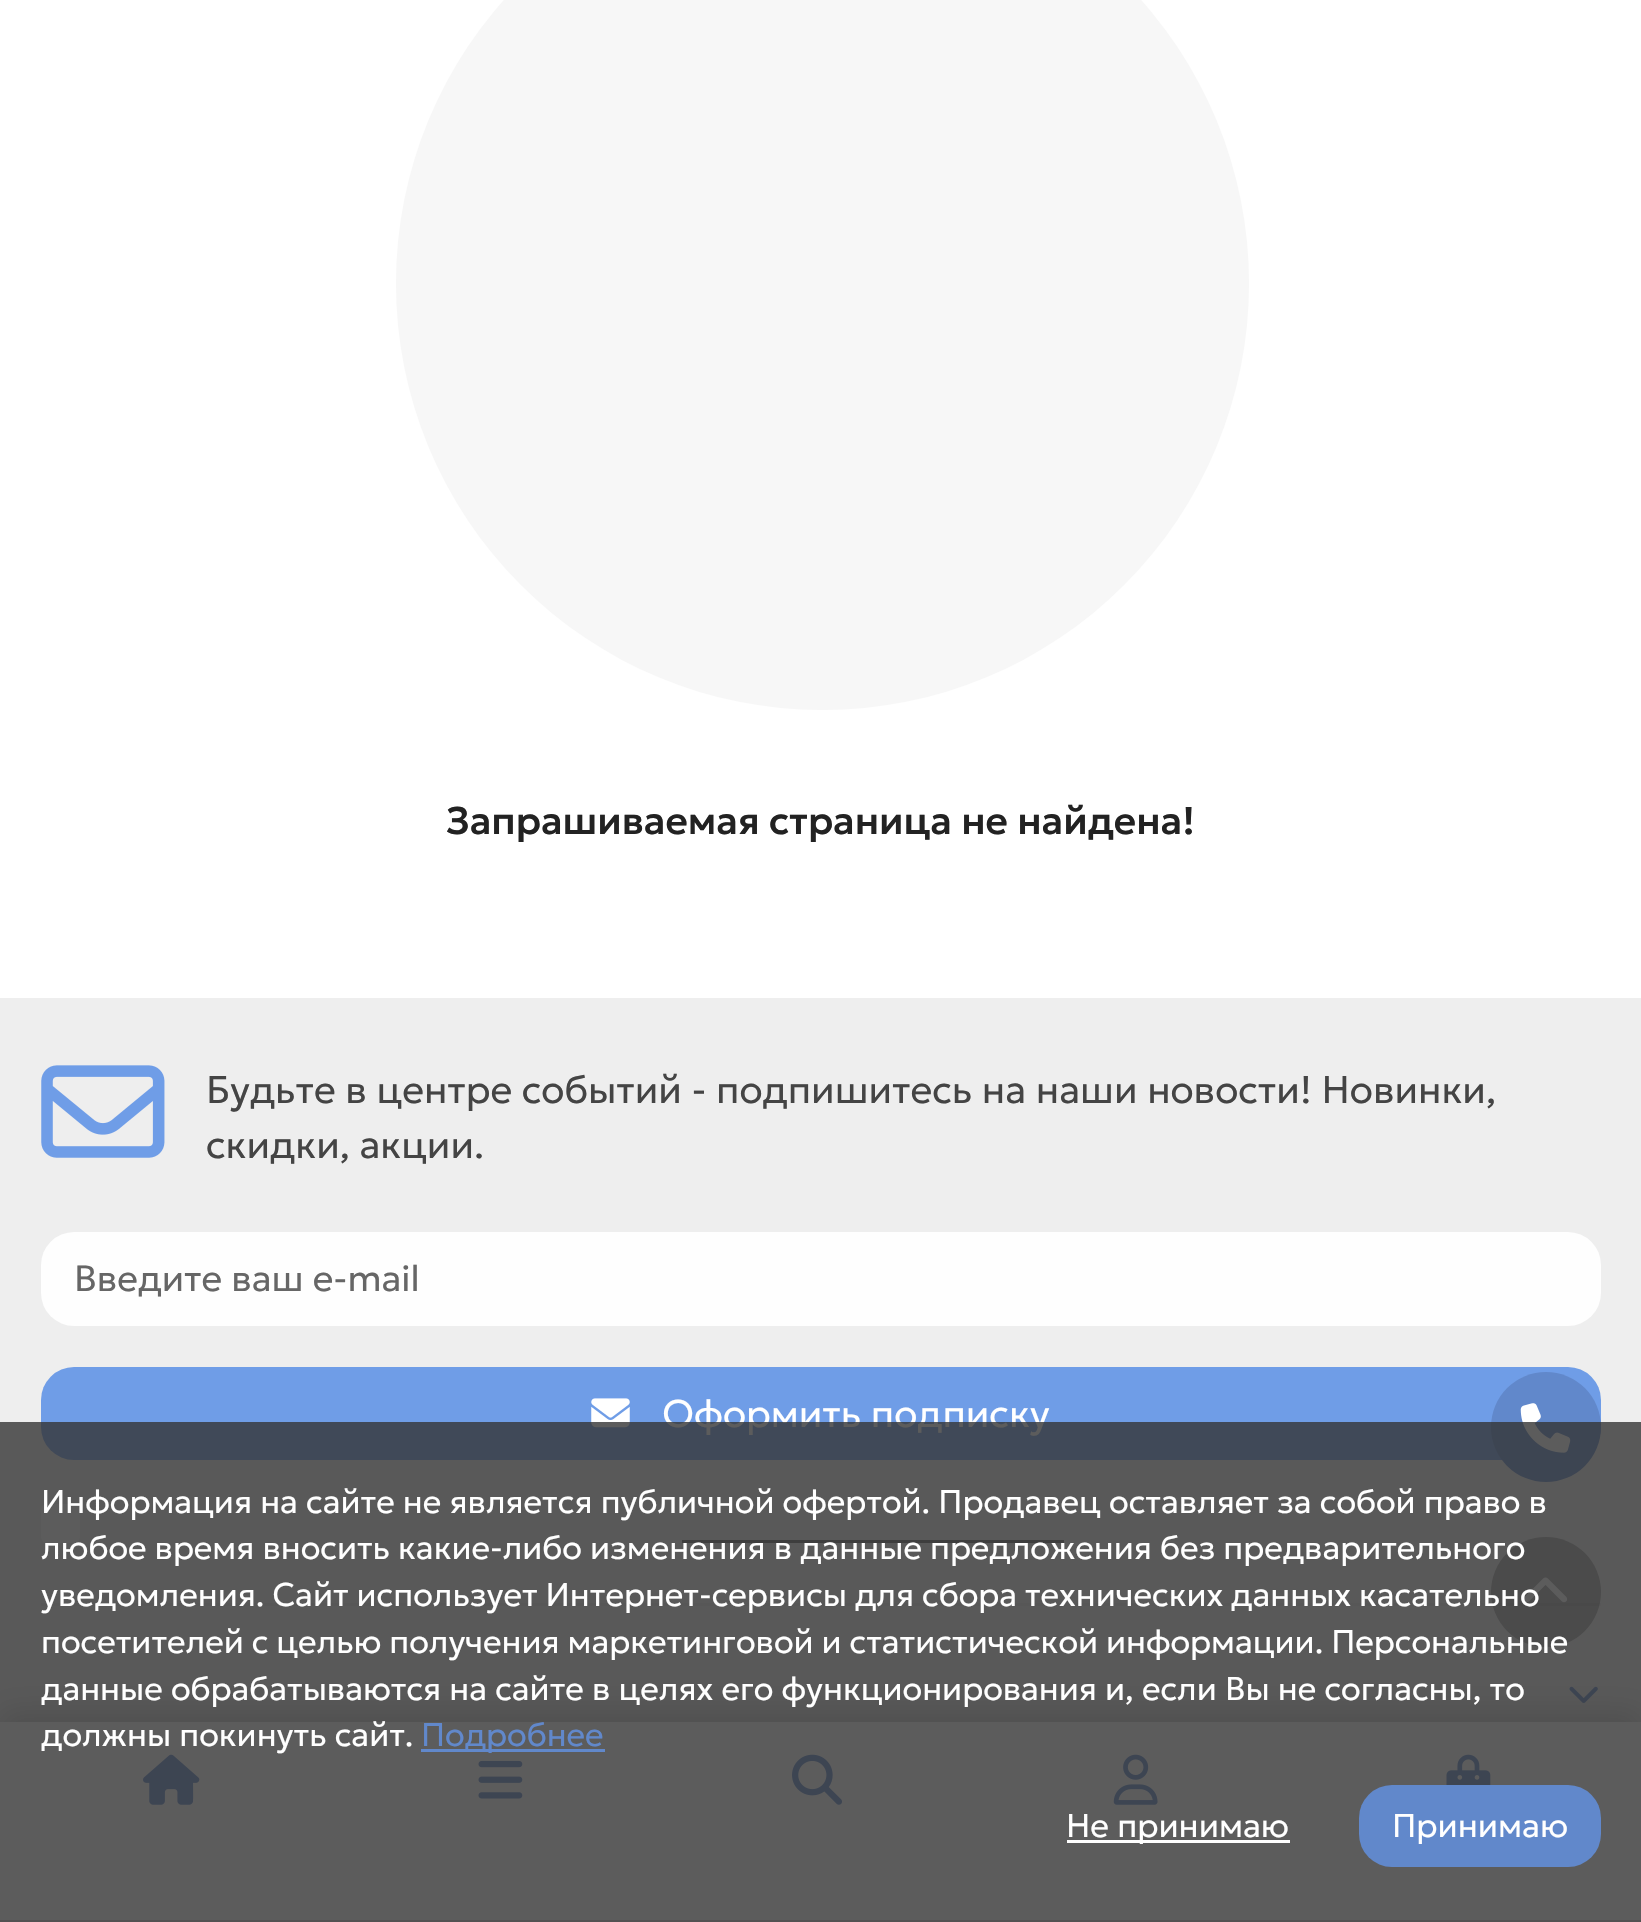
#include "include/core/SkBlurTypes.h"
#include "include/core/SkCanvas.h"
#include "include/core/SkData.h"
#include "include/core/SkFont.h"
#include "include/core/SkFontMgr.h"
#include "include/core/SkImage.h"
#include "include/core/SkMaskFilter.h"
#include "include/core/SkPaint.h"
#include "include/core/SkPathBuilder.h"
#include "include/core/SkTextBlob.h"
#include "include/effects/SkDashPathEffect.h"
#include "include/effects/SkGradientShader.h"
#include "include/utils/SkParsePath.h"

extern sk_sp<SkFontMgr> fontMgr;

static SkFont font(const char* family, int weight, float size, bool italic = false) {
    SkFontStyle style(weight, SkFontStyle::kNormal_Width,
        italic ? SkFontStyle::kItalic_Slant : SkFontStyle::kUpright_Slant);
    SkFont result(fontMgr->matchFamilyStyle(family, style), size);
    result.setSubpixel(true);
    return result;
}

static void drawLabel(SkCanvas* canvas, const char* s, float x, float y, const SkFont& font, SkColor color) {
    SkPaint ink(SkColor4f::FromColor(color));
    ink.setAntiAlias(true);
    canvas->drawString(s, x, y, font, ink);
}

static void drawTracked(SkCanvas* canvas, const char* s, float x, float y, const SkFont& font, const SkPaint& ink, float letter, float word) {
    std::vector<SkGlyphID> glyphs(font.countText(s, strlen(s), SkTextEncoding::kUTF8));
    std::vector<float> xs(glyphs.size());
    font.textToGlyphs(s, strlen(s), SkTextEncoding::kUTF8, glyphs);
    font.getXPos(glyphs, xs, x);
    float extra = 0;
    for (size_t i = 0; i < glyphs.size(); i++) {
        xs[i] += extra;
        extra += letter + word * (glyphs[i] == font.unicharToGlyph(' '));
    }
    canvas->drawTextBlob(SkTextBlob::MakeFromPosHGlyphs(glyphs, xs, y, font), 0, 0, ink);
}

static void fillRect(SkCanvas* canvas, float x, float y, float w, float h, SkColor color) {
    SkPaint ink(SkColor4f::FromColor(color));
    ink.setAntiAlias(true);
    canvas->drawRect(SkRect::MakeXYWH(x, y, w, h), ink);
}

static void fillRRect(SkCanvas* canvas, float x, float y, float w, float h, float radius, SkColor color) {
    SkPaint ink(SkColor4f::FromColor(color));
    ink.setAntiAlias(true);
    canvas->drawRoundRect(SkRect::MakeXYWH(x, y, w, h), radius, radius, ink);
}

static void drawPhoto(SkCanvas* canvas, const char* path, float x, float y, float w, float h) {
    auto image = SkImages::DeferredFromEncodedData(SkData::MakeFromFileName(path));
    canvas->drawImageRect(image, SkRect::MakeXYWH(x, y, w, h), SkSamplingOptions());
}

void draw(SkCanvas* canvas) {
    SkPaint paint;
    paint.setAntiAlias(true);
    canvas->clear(0xFFFFFFFF);
    paint.setColor(0xFFF7F7F7);
    canvas->drawCircle(822.5f, 283.5f, 426.5f, paint);
    SkFont font1 = font("Geologica", 500, 38.5f);
    drawLabel(canvas, "Запрашиваемая страница не найдена!", 446, 834, font1, 0xFF222222);
    fillRect(canvas, 0, 998, 1641, 724, 0xFFEEEEEE);
    drawPhoto(canvas, "assets/img1.png", 41, 1065, 124, 93);
    SkFont font2 = font("Geologica", 300, 38.5f);
    drawLabel(canvas, "Будьте в центре событий - подпишитесь на наши новости! Новинки,", 206, 1103, font2, 0xFF444444);
    drawLabel(canvas, "скидки, акции.", 206, 1158, font2, 0xFF444444);
    fillRRect(canvas, 41, 1232, 1560, 94, 33, 0xFFFEFEFE);
    SkFont font3 = font("Geologica", 300, 36.5f);
    drawLabel(canvas, "Введите ваш e-mail", 74, 1291, font3, 0xFF666666);
    fillRRect(canvas, 41, 1367, 1560, 93, 33, 0xFF6F9DE7);
    drawPhoto(canvas, "assets/img2.png", 591, 1398, 39, 30);
    drawLabel(canvas, "Оформить подписку", 662, 1427, font2, 0xFFFFFFFF);
    fillRRect(canvas, 41, 1504, 39, 39, 6, 0xFFFFFFFF);
    fillRect(canvas, 682, 1540, 382, 3, 0xFF666666);
    fillRect(canvas, 41, 1603, 1560, 3, 0xFFE2E2E2);
    drawPhoto(canvas, "assets/img3.png", 1569, 1686, 29, 17);
    paint.setColor(0xFF6188CB);
    canvas->drawCircle(1546, 1427, 55, paint);
    drawPhoto(canvas, "assets/img4.png", 1520, 1403, 51, 50);
    paint.setColor(0x4D000000);
    canvas->drawCircle(1546, 1592, 55, paint);
    drawPhoto(canvas, "assets/img5.png", 1523, 1577, 45, 26);
    paint.setColor(0x33000000);
    paint.setMaskFilter(SkMaskFilter::MakeBlur(kNormal_SkBlurStyle, 14));
    canvas->drawRect(SkRect::MakeXYWH(0, 1711, 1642, 200), paint);
    paint.setMaskFilter(nullptr);
    fillRect(canvas, 0, 1722, 1641, 198, 0xFFFEFEFE);
    fillRect(canvas, 0, 1920, 1641, 2, 0xFFCCCCCC);
    drawPhoto(canvas, "assets/img6.png", 143, 1754, 57, 51);
    drawPhoto(canvas, "assets/img7.png", 478, 1760, 45, 39);
    drawPhoto(canvas, "assets/img8.png", 792, 1754, 50, 51);
    drawPhoto(canvas, "assets/img9.png", 1113, 1754, 45, 51);
    drawPhoto(canvas, "assets/img10.png", 1446, 1754, 45, 31);
    fillRect(canvas, 0, 1422, 1641, 500, 0xCC333333);
    SkFont font4 = font("Geologica", 300, 32.75f);
    drawLabel(canvas, "Информация на сайте не является публичной офертой. Продавец оставляет за собой право в", 41, 1513, font4, 0xFFFFFFFF);
    paint.setColor(0xFFFFFFFF);
    drawTracked(canvas, "любое время вносить какие-либо изменения в данные предложения без предварительного", 41, 1559, font4, paint, 0, -0.1f);
    drawTracked(canvas, "уведомления. Сайт использует Интернет-сервисы для сбора технических данных касательно", 41, 1606, font4, paint, 0, -0.25f);
    drawTracked(canvas, "посетителей с целью получения маркетинговой и статистической информации. Персональные", 41, 1653, font4, paint, 0, -0.25f);
    drawLabel(canvas, "данные обрабатываются на сайте в целях его функционирования и, если Вы не согласны, то", 41, 1700, font4, 0xFFFFFFFF);
    drawLabel(canvas, "должны покинуть сайт.", 41, 1746, font4, 0xFFFFFFFF);
    fillRect(canvas, 421, 1749, 184, 3, 0xFF6188CB);
    drawLabel(canvas, "Подробнее", 421, 1746, font4, 0xFF6188CB);
    fillRect(canvas, 1067, 1840, 223, 3, 0xFFFFFFFF);
    SkFont font5 = font("Geologica", 300, 33);
    drawLabel(canvas, "Не принимаю", 1066, 1837, font5, 0xFFFFFFFF);
    fillRRect(canvas, 1359, 1785, 242, 82, 33, 0xFF6188CB);
    drawLabel(canvas, "Принимаю", 1392, 1837, font5, 0xFFFFFFFF);
}
